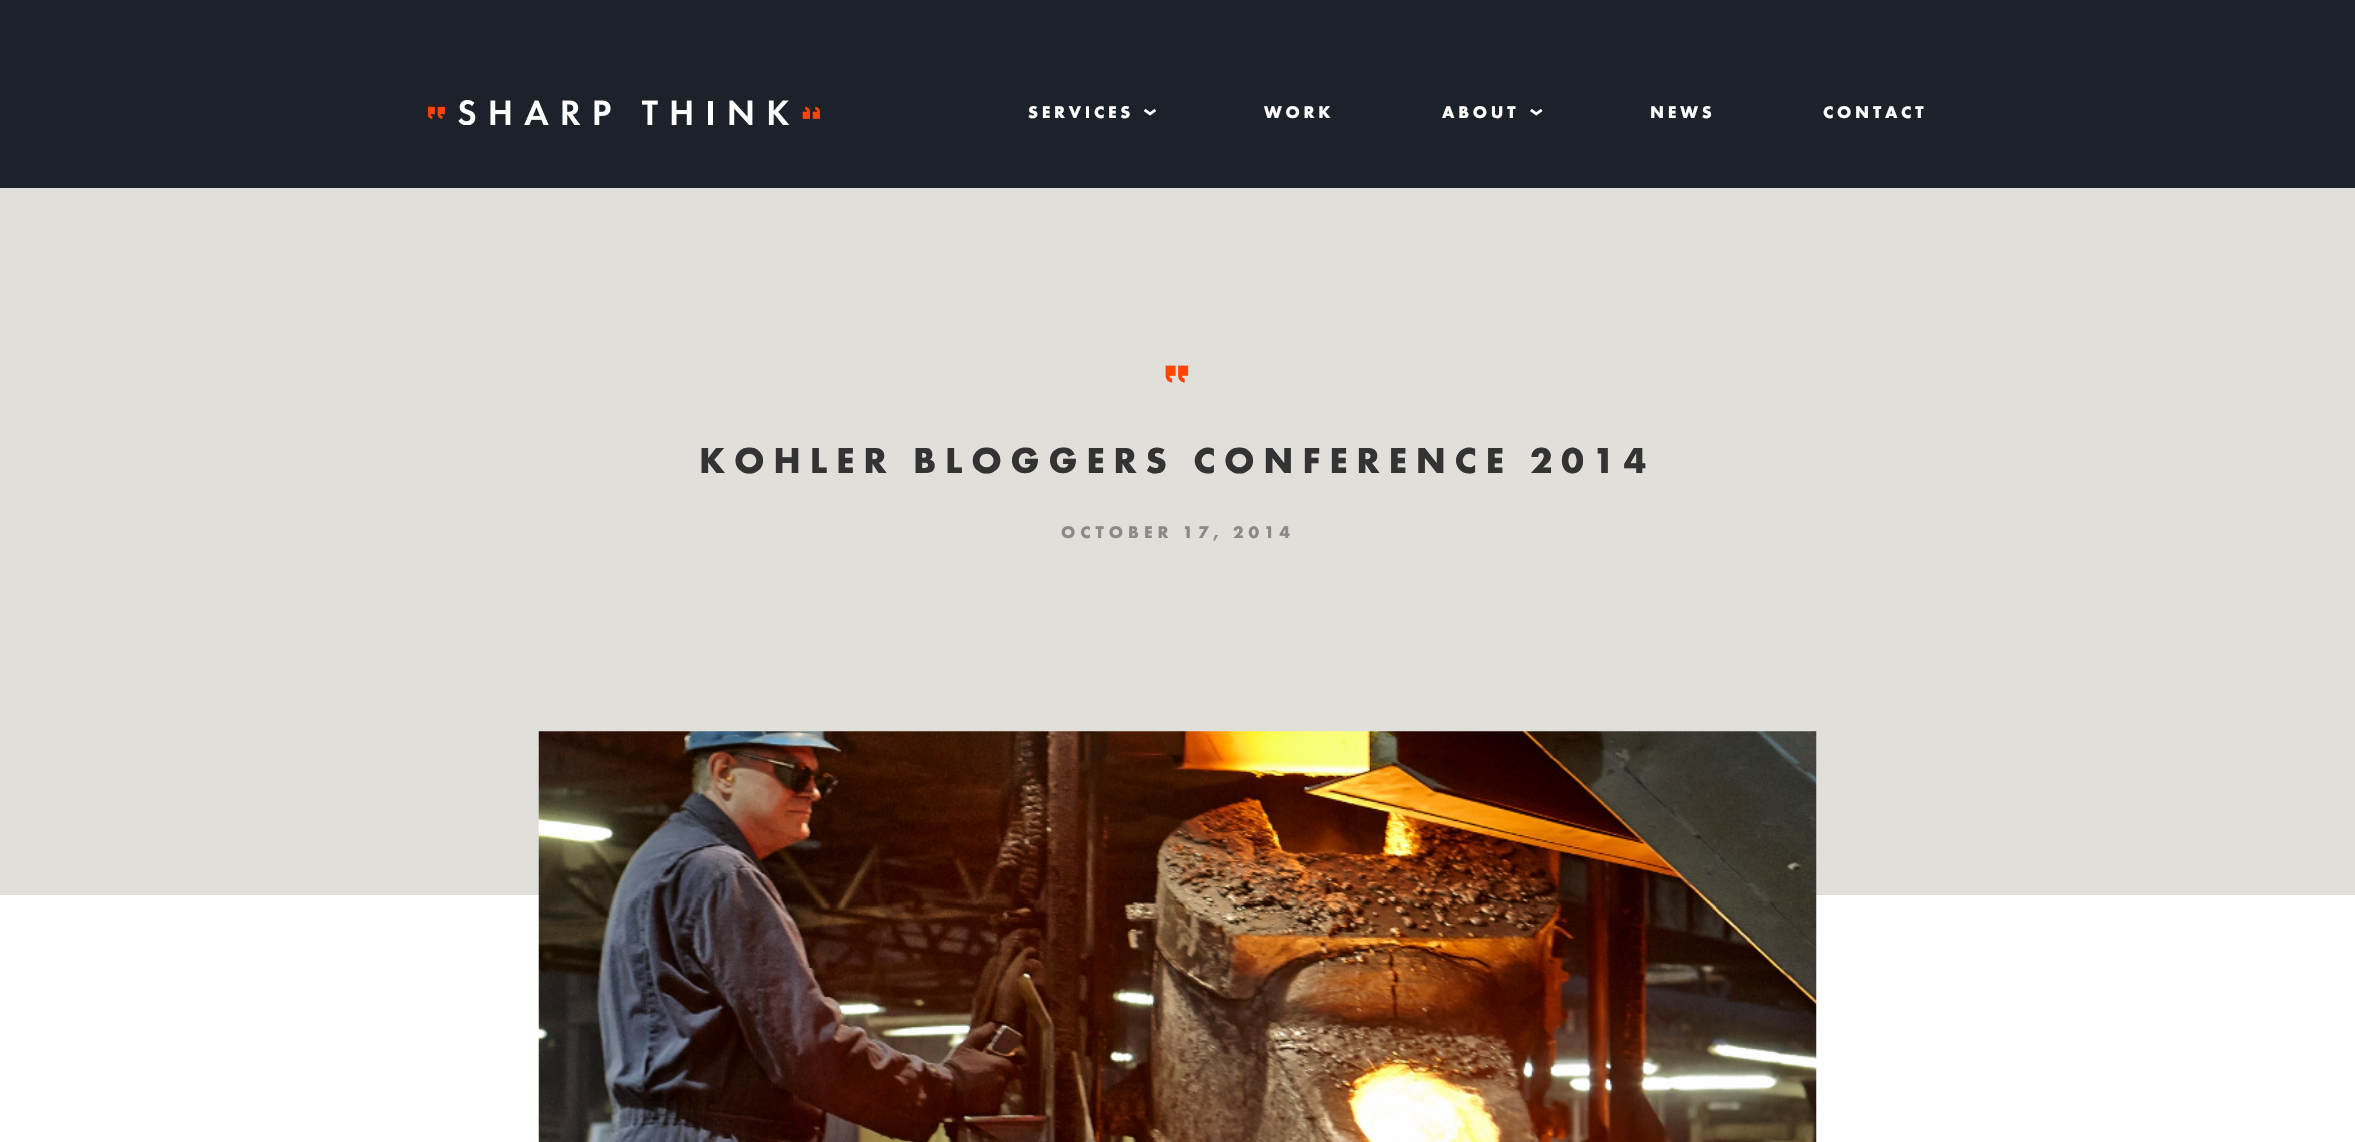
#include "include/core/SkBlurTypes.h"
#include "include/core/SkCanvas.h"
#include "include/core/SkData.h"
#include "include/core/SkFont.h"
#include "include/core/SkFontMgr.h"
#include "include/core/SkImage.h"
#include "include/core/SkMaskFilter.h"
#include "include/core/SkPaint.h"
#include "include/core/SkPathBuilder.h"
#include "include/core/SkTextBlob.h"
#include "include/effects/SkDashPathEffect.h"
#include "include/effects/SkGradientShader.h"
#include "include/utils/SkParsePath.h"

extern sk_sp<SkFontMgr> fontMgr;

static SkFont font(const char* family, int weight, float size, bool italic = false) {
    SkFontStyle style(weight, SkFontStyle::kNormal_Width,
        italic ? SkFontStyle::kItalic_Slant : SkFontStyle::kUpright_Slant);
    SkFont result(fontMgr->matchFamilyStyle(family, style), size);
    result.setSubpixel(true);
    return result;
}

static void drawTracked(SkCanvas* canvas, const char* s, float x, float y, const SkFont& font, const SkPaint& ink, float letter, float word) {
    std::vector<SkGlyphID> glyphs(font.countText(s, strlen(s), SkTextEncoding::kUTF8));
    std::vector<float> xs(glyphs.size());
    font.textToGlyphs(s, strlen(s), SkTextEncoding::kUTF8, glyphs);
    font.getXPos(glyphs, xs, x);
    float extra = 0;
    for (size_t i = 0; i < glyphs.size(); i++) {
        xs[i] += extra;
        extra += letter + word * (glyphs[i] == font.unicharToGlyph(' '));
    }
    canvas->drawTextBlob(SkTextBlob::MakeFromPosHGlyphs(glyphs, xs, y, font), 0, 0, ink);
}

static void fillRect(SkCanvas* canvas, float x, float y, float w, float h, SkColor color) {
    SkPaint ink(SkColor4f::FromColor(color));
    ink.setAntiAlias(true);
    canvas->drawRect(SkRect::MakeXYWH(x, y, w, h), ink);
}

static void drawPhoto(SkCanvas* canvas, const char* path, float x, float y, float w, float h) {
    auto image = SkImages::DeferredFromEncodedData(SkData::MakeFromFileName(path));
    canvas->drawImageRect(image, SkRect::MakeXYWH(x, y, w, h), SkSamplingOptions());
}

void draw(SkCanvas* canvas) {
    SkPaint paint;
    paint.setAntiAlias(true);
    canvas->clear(0xFFFFFFFF);
    fillRect(canvas, 0, 0, 2355, 188, 0xFF1D2129);
    drawPhoto(canvas, "assets/img1.png", 428, 100, 392, 25);
    drawPhoto(canvas, "assets/img2.png", 1144, 109, 12, 7);
    SkFont font1 = font("Futura PT", 700, 17.5f);
    paint.setColor(0xFFFFFFFF);
    drawTracked(canvas, "SERVICES", 1028, 118, font1, paint, 3.75f, 0);
    drawTracked(canvas, "WORK", 1264, 118, font1, paint, 3.75f, 0);
    drawPhoto(canvas, "assets/img3.png", 1530, 109, 13, 7);
    drawTracked(canvas, "ABOUT", 1442, 118, font1, paint, 3.75f, 0);
    drawTracked(canvas, "NEWS", 1650, 118, font1, paint, 3.75f, 0);
    drawTracked(canvas, "CONTACT", 1823, 118, font1, paint, 3.75f, 0);
    fillRect(canvas, 0, 188, 2355, 707, 0xFFE0DFDA);
    drawPhoto(canvas, "assets/img4.png", 1165, 365, 24, 18);
    SkFont font2 = font("Futura PT", 700, 37.5f);
    paint.setColor(0xFF333333);
    drawTracked(canvas, "KOHLER BLOGGERS CONFERENCE 2014", 699, 473, font2, paint, 8.75f, 0);
    paint.setColor(0xFF8A8987);
    drawTracked(canvas, "OCTOBER 17, 2014", 1061, 538, font1, paint, 5, 0);
    drawPhoto(canvas, "assets/img5.png", 538, 731, 1279, 411);
}
